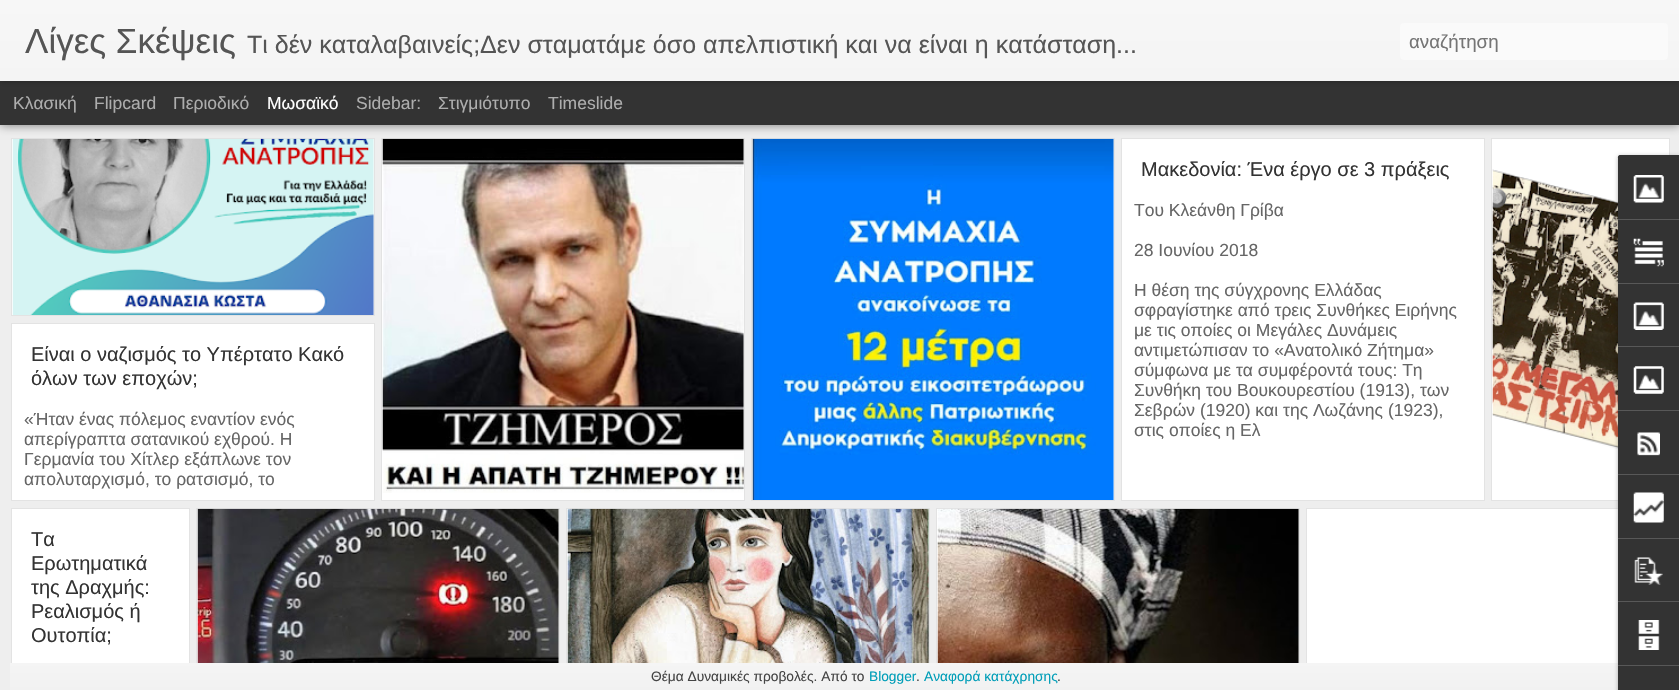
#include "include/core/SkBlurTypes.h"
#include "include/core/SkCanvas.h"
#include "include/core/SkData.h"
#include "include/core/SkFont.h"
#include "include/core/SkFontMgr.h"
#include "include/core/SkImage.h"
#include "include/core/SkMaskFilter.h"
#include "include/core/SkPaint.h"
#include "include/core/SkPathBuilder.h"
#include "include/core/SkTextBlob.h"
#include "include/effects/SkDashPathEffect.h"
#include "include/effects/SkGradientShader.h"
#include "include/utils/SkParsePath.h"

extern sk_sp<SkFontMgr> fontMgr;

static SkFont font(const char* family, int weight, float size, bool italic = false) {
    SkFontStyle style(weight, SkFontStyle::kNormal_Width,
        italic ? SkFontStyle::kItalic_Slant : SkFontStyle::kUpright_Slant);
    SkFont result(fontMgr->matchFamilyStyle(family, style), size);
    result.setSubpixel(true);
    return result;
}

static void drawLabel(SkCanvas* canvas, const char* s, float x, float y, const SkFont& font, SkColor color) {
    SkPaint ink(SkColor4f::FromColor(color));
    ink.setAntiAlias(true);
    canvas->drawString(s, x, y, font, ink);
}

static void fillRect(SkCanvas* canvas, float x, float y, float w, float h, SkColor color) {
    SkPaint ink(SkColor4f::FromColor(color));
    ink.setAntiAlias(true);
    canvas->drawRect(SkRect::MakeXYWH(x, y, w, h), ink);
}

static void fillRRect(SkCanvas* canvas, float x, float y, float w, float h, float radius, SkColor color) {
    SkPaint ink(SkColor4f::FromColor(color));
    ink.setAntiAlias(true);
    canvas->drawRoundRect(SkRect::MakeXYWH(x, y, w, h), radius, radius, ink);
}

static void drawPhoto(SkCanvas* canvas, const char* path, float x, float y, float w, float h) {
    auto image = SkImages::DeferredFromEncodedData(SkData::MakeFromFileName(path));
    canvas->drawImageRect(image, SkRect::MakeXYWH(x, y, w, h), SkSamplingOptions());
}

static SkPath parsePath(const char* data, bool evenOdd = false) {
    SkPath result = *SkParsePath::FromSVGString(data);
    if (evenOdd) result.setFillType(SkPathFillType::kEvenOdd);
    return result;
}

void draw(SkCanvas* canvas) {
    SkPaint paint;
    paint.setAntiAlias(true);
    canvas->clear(0xFFEEEEEE);
    paint.setColor(0xFFFFFFFF);
    canvas->drawRect(SkRect::MakeXYWH(11.5f, 138.5f, 363, 177), paint);
    paint.setStroke(true);
    paint.setStrokeWidth(1);
    paint.setColor(0xFFE3E3E3);
    canvas->drawRect(SkRect::MakeXYWH(11.5f, 138.5f, 363, 177), paint);
    drawPhoto(canvas, "assets/img1.png", 12, 138, 362, 177);
    paint.setStroke(false);
    paint.setColor(0xFFFFFFFF);
    canvas->drawRect(SkRect::MakeXYWH(381.5f, 138.5f, 363, 362), paint);
    paint.setStroke(true);
    paint.setColor(0xFFE3E3E3);
    canvas->drawRect(SkRect::MakeXYWH(381.5f, 138.5f, 363, 362), paint);
    drawPhoto(canvas, "assets/img2.png", 382, 138, 362, 355);
    paint.setStroke(false);
    paint.setColor(0xFFFFFFFF);
    canvas->drawRect(SkRect::MakeXYWH(751.5f, 138.5f, 363, 362), paint);
    paint.setStroke(true);
    paint.setColor(0xFFE3E3E3);
    canvas->drawRect(SkRect::MakeXYWH(751.5f, 138.5f, 363, 362), paint);
    drawPhoto(canvas, "assets/img3.png", 752, 138, 362, 362);
    paint.setStroke(false);
    paint.setColor(0xFFFFFFFF);
    canvas->drawRect(SkRect::MakeXYWH(1121.5f, 138.5f, 363, 362), paint);
    paint.setStroke(true);
    paint.setColor(0xFFE3E3E3);
    canvas->drawRect(SkRect::MakeXYWH(1121.5f, 138.5f, 363, 362), paint);
    paint.setStroke(false);
    paint.setColor(0xFFFFFFFF);
    canvas->drawRect(SkRect::MakeXYWH(1491.5f, 138.5f, 178, 362), paint);
    paint.setStroke(true);
    paint.setColor(0xFFE3E3E3);
    canvas->drawRect(SkRect::MakeXYWH(1491.5f, 138.5f, 178, 362), paint);
    paint.setStroke(false);
    paint.setColor(0x80000000);
    paint.setMaskFilter(SkMaskFilter::MakeBlur(kNormal_SkBlurStyle, 5));
    canvas->drawRect(SkRect::MakeXYWH(0, 81, 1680, 44), paint);
    paint.setMaskFilter(nullptr);
    fillRect(canvas, 0, 81, 1679, 44, 0xFF333333);
    paint.setColor(0x4D000000);
    paint.setMaskFilter(SkMaskFilter::MakeBlur(kNormal_SkBlurStyle, 3));
    canvas->drawRect(SkRect::MakeXYWH(0, 0, 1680, 81), paint);
    paint.setMaskFilter(nullptr);
    {
        const SkColor colors[] = {0xFFF7F7F7, 0xFFF4F4F4};
        const float stops[] = {0, 1};
        const SkPoint ends[] = {{0, 0}, {0, 81}};
        paint.setShader(SkGradientShader::MakeLinear(ends, colors, stops, 2, SkTileMode::kClamp));
        paint.setAlpha(255);
    }
    canvas->drawRect(SkRect::MakeXYWH(0, 0, 1679, 81), paint);
    SkFont font1 = font("Liberation Sans", 400, 35);
    drawLabel(canvas, "Λίγες Σκέψεις", 25, 53, font1, 0xFF555555);
    SkFont font2 = font("Liberation Sans", 400, 25);
    drawLabel(canvas, "Τι δέν καταλαβαινείς;Δεν σταματάμε όσο απελπιστική και να είναι η κατάσταση...", 247, 53, font2, 0xFF555555);
    fillRRect(canvas, 1400, 23, 268, 37, 4, 0xFFFAFAFA);
    SkFont font3 = font("Liberation Sans", 400, 18.75f);
    drawLabel(canvas, "αναζήτηση", 1409, 48, font3, 0xFF757575);
    SkFont font4 = font("Liberation Sans", 400, 17.5f);
    drawLabel(canvas, "Κλασική", 13, 109, font4, 0xFFADADAD);
    drawLabel(canvas, "Flipcard", 94, 109, font4, 0xFFADADAD);
    drawLabel(canvas, "Περιοδικό", 173, 109, font4, 0xFFADADAD);
    drawLabel(canvas, "Μωσαϊκό", 267, 109, font4, 0xFFFFFFFF);
    drawLabel(canvas, "Sidebar:", 356, 109, font4, 0xFFADADAD);
    drawLabel(canvas, "Στιγμιότυπο", 438, 109, font4, 0xFFADADAD);
    drawLabel(canvas, "Timeslide", 548, 109, font4, 0xFFADADAD);
    SkFont font5 = font("Liberation Sans", 400, 20);
    drawLabel(canvas, "Μακεδονία: Ένα έργο σε 3 πράξεις", 1141, 176, font5, 0xFF333333);
    drawLabel(canvas, "Του Κλεάνθη Γρίβα", 1134, 216, font4, 0xFF666666);
    drawLabel(canvas, "28 Ιουνίου 2018", 1134, 256, font4, 0xFF666666);
    drawLabel(canvas, "Η θέση της σύγχρονης Ελλάδας", 1134, 296, font4, 0xFF666666);
    drawLabel(canvas, "σφραγίστηκε από τρεις Συνθήκες Ειρήνης", 1134, 316, font4, 0xFF666666);
    drawLabel(canvas, "με τις οποίες οι Μεγάλες Δυνάμεις", 1134, 336, font4, 0xFF666666);
    drawLabel(canvas, "αντιμετώπισαν το «Ανατολικό Ζήτημα»", 1134, 356, font4, 0xFF666666);
    drawLabel(canvas, "σύμφωνα με τα συμφέροντά τους: Τη", 1134, 376, font4, 0xFF666666);
    drawLabel(canvas, "Συνθήκη του Βουκουρεστίου (1913), των", 1134, 396, font4, 0xFF666666);
    drawLabel(canvas, "Σεβρών (1920) και της Λωζάνης (1923),", 1134, 416, font4, 0xFF666666);
    drawLabel(canvas, "στις οποίες η Ελ", 1134, 436, font4, 0xFF666666);
    drawPhoto(canvas, "assets/img4.png", 1492, 169, 126, 280);
    paint.setShader(nullptr);
    paint.setColor(0xFFFFFFFF);
    canvas->drawRect(SkRect::MakeXYWH(11.5f, 323.5f, 363, 177), paint);
    paint.setStroke(true);
    paint.setColor(0xFFE3E3E3);
    canvas->drawRect(SkRect::MakeXYWH(11.5f, 323.5f, 363, 177), paint);
    drawLabel(canvas, "Είναι ο ναζισμός το Yπέρτατο Kακό", 31, 361, font5, 0xFF333333);
    drawLabel(canvas, "όλων των εποχών;", 31, 385, font5, 0xFF333333);
    drawLabel(canvas, "«Ήταν ένας πόλεμος εναντίον ενός", 24, 425, font4, 0xFF666666);
    drawLabel(canvas, "απερίγραπτα σατανικού εχθρού. Η", 24, 445, font4, 0xFF666666);
    drawLabel(canvas, "Γερμανία του Χίτλερ εξάπλωνε τον", 24, 465, font4, 0xFF666666);
    drawLabel(canvas, "απολυταρχισμό, το ρατσισμό, το", 24, 485, font4, 0xFF666666);
    fillRect(canvas, 12, 509, 177, 154, 0xFFFFFFFF);
    canvas->drawRect(SkRect::MakeXYWH(11.5f, 508.5f, 178, 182), paint);
    drawLabel(canvas, "Τα", 31, 546, font5, 0xFF333333);
    drawLabel(canvas, "Ερωτηματικά", 31, 570, font5, 0xFF333333);
    drawLabel(canvas, "της Δραχμής:", 31, 594, font5, 0xFF333333);
    drawLabel(canvas, "Ρεαλισμός ή", 31, 618, font5, 0xFF333333);
    drawLabel(canvas, "Ουτοπία;", 31, 642, font5, 0xFF333333);
    fillRect(canvas, 197, 509, 362, 154, 0xFFFFFFFF);
    canvas->drawRect(SkRect::MakeXYWH(196.5f, 508.5f, 363, 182), paint);
    drawPhoto(canvas, "assets/img5.png", 197, 508, 362, 155);
    fillRect(canvas, 567, 509, 362, 154, 0xFFFFFFFF);
    canvas->drawRect(SkRect::MakeXYWH(566.5f, 508.5f, 363, 177), paint);
    drawPhoto(canvas, "assets/img6.png", 567, 508, 362, 155);
    fillRect(canvas, 937, 509, 362, 154, 0xFFFFFFFF);
    canvas->drawRect(SkRect::MakeXYWH(936.5f, 508.5f, 363, 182), paint);
    drawPhoto(canvas, "assets/img7.png", 937, 508, 362, 155);
    fillRect(canvas, 1307, 509, 311, 154, 0xFFFFFFFF);
    canvas->drawRect(SkRect::MakeXYWH(1306.5f, 508.5f, 363, 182), paint);
    paint.setStroke(false);
    {
        const SkColor colors[] = {0xFFF5F5F5, 0xFFF1F1F1};
        const float stops[] = {0, 1};
        const SkPoint ends[] = {{856, 662}, {856, 690}};
        paint.setShader(SkGradientShader::MakeLinear(ends, colors, stops, 2, SkTileMode::kClamp));
        paint.setAlpha(255);
    }
    canvas->drawRect(SkRect::MakeXYWH(10, 663, 1608, 27), paint);
    paint.setShader(nullptr);
    paint.setColor(0x4D000000);
    paint.setMaskFilter(SkMaskFilter::MakeBlur(kNormal_SkBlurStyle, 2));
    canvas->drawRoundRect(SkRect::MakeXYWH(1618, 156, 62, 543), 2.5f, 2.5f, paint);
    paint.setMaskFilter(nullptr);
    paint.setColor(0xFF333333);
    canvas->drawPath(parsePath("M1620.5 155H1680V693H1620.5C1619 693 1618 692 1618 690.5V157.5C1618 156 1619 155 1620.5 155Z"), paint);
    canvas->drawPath(parsePath("M1620.5 155H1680V219H1618V157.5C1618 156 1619 155 1620.5 155Z"), paint);
    drawPhoto(canvas, "assets/img8.png", 1633, 175, 31, 28);
    fillRect(canvas, 1618, 219, 61, 1, 0xFF585858);
    drawPhoto(canvas, "assets/img9.png", 1633, 238, 31, 29);
    fillRect(canvas, 1618, 283, 61, 1, 0xFF585858);
    drawPhoto(canvas, "assets/img10.png", 1633, 302, 31, 28);
    fillRect(canvas, 1618, 346, 61, 1, 0xFF585858);
    drawPhoto(canvas, "assets/img11.png", 1633, 366, 31, 28);
    fillRect(canvas, 1618, 410, 61, 1, 0xFF585858);
    drawPhoto(canvas, "assets/img12.png", 1637, 432, 23, 24);
    fillRect(canvas, 1618, 474, 61, 1, 0xFF585858);
    drawPhoto(canvas, "assets/img13.png", 1633, 492, 31, 31);
    fillRect(canvas, 1618, 538, 61, 1, 0xFF585858);
    drawPhoto(canvas, "assets/img14.png", 1634, 557, 29, 28);
    fillRect(canvas, 1618, 601, 61, 1, 0xFF585858);
    drawPhoto(canvas, "assets/img15.png", 1638, 620, 22, 30);
    fillRect(canvas, 1618, 665, 61, 1, 0xFF585858);
    SkFont font6 = font("Liberation Sans", 400, 13.75f);
    drawLabel(canvas, "Θέμα Δυναμικές προβολές. Από το", 651, 681, font6, 0xFF444444);
    drawLabel(canvas, "Blogger", 869, 681, font6, 0xFF009EB8);
    drawLabel(canvas, ".", 916, 681, font6, 0xFF444444);
    drawLabel(canvas, "Αναφορά κατάχρησης", 924, 681, font6, 0xFF009EB8);
    drawLabel(canvas, ".", 1057, 681, font6, 0xFF444444);
}
